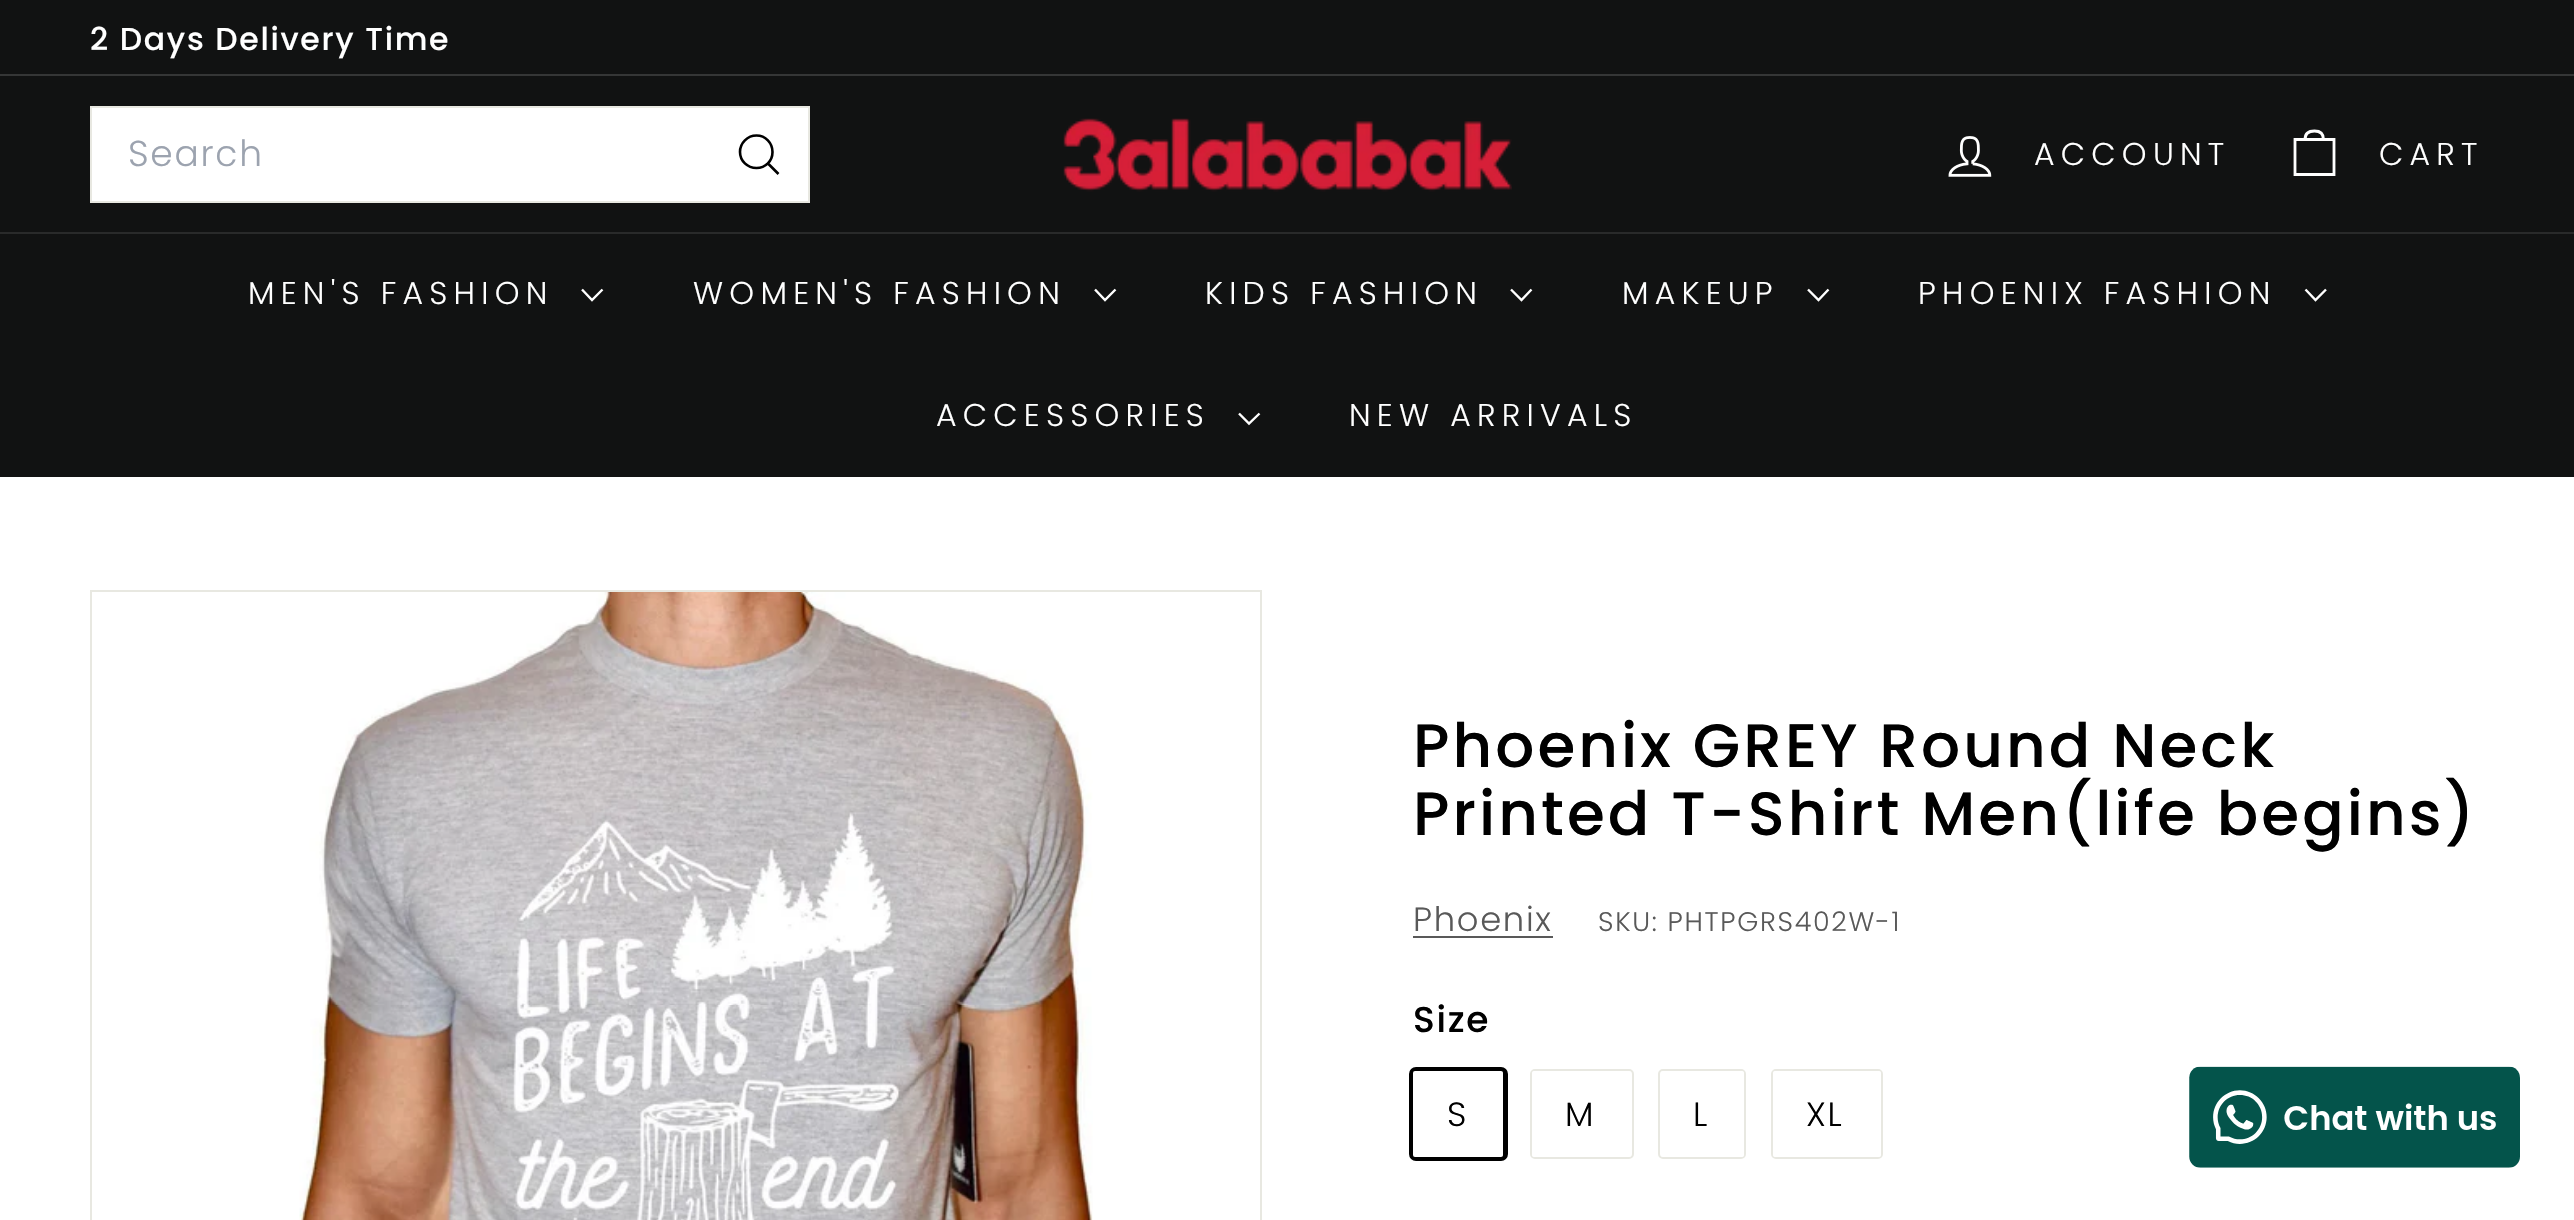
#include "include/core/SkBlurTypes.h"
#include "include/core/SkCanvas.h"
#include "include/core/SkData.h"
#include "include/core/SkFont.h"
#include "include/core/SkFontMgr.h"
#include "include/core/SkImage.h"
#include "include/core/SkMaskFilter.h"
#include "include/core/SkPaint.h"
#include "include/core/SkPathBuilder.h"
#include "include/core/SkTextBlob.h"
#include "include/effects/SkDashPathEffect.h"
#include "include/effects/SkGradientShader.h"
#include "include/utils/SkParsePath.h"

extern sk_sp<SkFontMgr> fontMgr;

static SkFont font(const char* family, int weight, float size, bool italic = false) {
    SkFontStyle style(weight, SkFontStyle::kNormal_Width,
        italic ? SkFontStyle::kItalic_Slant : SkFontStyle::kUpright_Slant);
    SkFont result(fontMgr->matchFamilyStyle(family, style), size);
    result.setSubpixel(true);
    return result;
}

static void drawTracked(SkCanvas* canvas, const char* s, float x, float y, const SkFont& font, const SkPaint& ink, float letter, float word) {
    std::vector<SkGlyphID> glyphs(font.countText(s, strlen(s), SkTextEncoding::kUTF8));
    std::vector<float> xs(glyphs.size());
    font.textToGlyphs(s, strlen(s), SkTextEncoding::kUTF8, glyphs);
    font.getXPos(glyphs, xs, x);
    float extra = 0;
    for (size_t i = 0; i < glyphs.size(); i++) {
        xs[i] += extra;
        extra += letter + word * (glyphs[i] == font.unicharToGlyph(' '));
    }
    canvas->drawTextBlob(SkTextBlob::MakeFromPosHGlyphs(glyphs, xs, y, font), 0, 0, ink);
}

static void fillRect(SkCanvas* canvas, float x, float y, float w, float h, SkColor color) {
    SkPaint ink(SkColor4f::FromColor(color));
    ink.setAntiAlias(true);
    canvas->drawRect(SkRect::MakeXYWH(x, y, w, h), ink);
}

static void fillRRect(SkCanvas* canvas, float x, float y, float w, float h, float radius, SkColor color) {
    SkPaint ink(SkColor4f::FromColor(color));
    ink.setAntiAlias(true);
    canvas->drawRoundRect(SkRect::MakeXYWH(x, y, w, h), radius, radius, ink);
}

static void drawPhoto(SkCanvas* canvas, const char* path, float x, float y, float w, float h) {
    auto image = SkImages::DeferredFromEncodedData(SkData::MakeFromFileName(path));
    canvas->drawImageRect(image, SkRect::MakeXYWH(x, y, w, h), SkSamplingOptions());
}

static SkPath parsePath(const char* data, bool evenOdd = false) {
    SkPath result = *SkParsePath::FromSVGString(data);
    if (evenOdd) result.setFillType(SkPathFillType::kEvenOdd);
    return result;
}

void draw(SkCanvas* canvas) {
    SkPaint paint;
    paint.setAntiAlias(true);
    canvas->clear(0xFFFFFFFF);
    fillRect(canvas, 0, 0, 2574, 232, 0xFF111212);
    SkFont font1 = font("Poppins", 500, 31.5f);
    paint.setColor(0xFFFFFFFF);
    drawTracked(canvas, "2 Days Delivery Time", 90, 50, font1, paint, 1.7f, 0);
    fillRect(canvas, 0, 74, 2574, 2, 0xFF353636);
    canvas->drawRect(SkRect::MakeXYWH(91, 107, 718, 95), paint);
    paint.setStroke(true);
    paint.setStrokeWidth(2);
    paint.setColor(0xFFE8E8E1);
    canvas->drawRect(SkRect::MakeXYWH(91, 107, 718, 95), paint);
    SkFont font2 = font("Poppins", 300, 36);
    paint.setStroke(false);
    paint.setColor(0xFF9CA3AF);
    drawTracked(canvas, "Search", 128, 166, font2, paint, 1.75f, 0);
    paint.setStroke(true);
    paint.setStrokeWidth(2.6f);
    paint.setColor(0xFF000000);
    canvas->drawPath(parsePath("M772.5 152C772.5 161 765.5 168 756.5 168C747.5 168 740 161 740 152C740 143 747.5 135.5 756.5 135.5C765.5 135.5 772.5 143 772.5 152M778.5 174L768 163.5"), paint);
    drawPhoto(canvas, "assets/img1.png", 1063, 118, 449, 74);
    drawPhoto(canvas, "assets/img2.png", 1948, 136, 44, 41);
    SkFont font3 = font("Poppins", 300, 31.5f);
    paint.setStroke(false);
    paint.setColor(0xFFFFFFFF);
    drawTracked(canvas, "ACCOUNT", 2034, 165, font3, paint, 6.25f, 0);
    paint.setStroke(true);
    paint.setStrokeWidth(2.8f);
    canvas->drawPath(parsePath("M2305 139.5C2305 133 2309.5 131 2314.5 131C2319.5 131 2323.5 133 2323.5 139.5M2295 139.5H2334V174.5H2295Z"), paint);
    paint.setStroke(false);
    drawTracked(canvas, "CART", 2379, 165, font3, paint, 6.25f, 0);
    fillRect(canvas, 0, 234, 2574, 243, 0xFF111212);
    fillRect(canvas, 0, 232, 2574, 2, 0xFF292A2A);
    drawTracked(canvas, "MEN'S FASHION", 248, 304, font3, paint, 6.25f, 0);
    paint.setStroke(true);
    paint.setStrokeWidth(2.4f);
    canvas->drawPath(parsePath("M582 289.5L592 300L602.5 289.5"), paint);
    paint.setStroke(false);
    drawTracked(canvas, "WOMEN'S FASHION", 693, 304, font3, paint, 6.25f, 0);
    paint.setStroke(true);
    canvas->drawPath(parsePath("M1095 289.5L1105 300L1115.5 289.5"), paint);
    paint.setStroke(false);
    drawTracked(canvas, "KIDS FASHION", 1205, 304, font3, paint, 6.25f, 0);
    paint.setStroke(true);
    canvas->drawPath(parsePath("M1511 289.5L1521.5 300L1531.5 289.5"), paint);
    paint.setStroke(false);
    drawTracked(canvas, "MAKEUP", 1622, 304, font3, paint, 6.25f, 0);
    paint.setStroke(true);
    canvas->drawPath(parsePath("M1808 289.5L1818.5 300L1828.5 289.5"), paint);
    paint.setStroke(false);
    drawTracked(canvas, "PHOENIX FASHION", 1918, 304, font3, paint, 6.25f, 0);
    paint.setStroke(true);
    canvas->drawPath(parsePath("M2305.5 289.5L2315.5 300L2326 289.5"), paint);
    paint.setStroke(false);
    drawTracked(canvas, "ACCESSORIES", 936, 426, font3, paint, 6.25f, 0);
    paint.setStroke(true);
    canvas->drawPath(parsePath("M1239 413.5L1249 423.5L1259.5 413.5"), paint);
    paint.setStroke(false);
    drawTracked(canvas, "NEW ARRIVALS", 1349, 426, font3, paint, 6.25f, 0);
    paint.setStroke(true);
    paint.setStrokeWidth(2);
    paint.setColor(0xFFE8E8E1);
    canvas->drawRect(SkRect::MakeXYWH(91, 591, 1170, 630), paint);
    drawPhoto(canvas, "assets/img3.png", 299, 592, 794, 628);
    SkFont font4 = font("Poppins", 500, 61.25f);
    paint.setStroke(false);
    paint.setColor(0xFF000000);
    drawTracked(canvas, "Phoenix GREY Round Neck", 1413, 767, font4, paint, 3.05f, 0);
    drawTracked(canvas, "Printed T-Shirt Men(life begins)", 1413, 835, font4, paint, 3.05f, 0);
    SkFont font5 = font("Poppins", 300, 33.75f);
    paint.setColor(0xFF595959);
    drawTracked(canvas, "Phoenix", 1413, 931, font5, paint, 1.7f, 0);
    fillRect(canvas, 1413, 936, 140, 2, 0xFF595959);
    SkFont font6 = font("Poppins", 300, 27);
    drawTracked(canvas, "SKU: PHTPGRS402W-1", 1598, 931, font6, paint, 1.7f, 0);
    SkFont font7 = font("Poppins", 500, 36);
    paint.setColor(0xFF000000);
    drawTracked(canvas, "Size", 1413, 1032, font7, paint, 1.7f, 0);
    paint.setStroke(true);
    paint.setStrokeWidth(5);
    canvas->drawRoundRect(SkRect::MakeXYWH(1411.5f, 1069.5f, 94, 89), 4.5f, 4.5f, paint);
    fillRRect(canvas, 1413, 1071, 90, 86, 2, 0xFFFFFFFF);
    paint.setStroke(false);
    drawTracked(canvas, "S", 1447, 1126, font5, paint, 1.7f, 0);
    paint.setStroke(true);
    paint.setStrokeWidth(2);
    paint.setColor(0xFFE8E8E1);
    canvas->drawRoundRect(SkRect::MakeXYWH(1531, 1070, 102, 88), 4, 4, paint);
    fillRRect(canvas, 1532, 1071, 99, 86, 2, 0xFFFFFFFF);
    paint.setStroke(false);
    paint.setColor(0xFF000000);
    drawTracked(canvas, "M", 1565, 1126, font5, paint, 1.7f, 0);
    paint.setStroke(true);
    paint.setColor(0xFFE8E8E1);
    canvas->drawRoundRect(SkRect::MakeXYWH(1659, 1070, 86, 88), 4, 4, paint);
    fillRRect(canvas, 1661, 1071, 83, 86, 2, 0xFFFFFFFF);
    paint.setStroke(false);
    paint.setColor(0xFF000000);
    drawTracked(canvas, "L", 1693, 1126, font5, paint, 1.7f, 0);
    paint.setStroke(true);
    paint.setColor(0xFFE8E8E1);
    canvas->drawRoundRect(SkRect::MakeXYWH(1772, 1070, 110, 88), 4, 4, paint);
    fillRRect(canvas, 1773, 1071, 108, 86, 2, 0xFFFFFFFF);
    paint.setStroke(false);
    paint.setColor(0xFF000000);
    drawTracked(canvas, "XL", 1806, 1126, font5, paint, 1.7f, 0);
    drawPhoto(canvas, "assets/img4.png", 2189, 1066, 331, 102);
}
